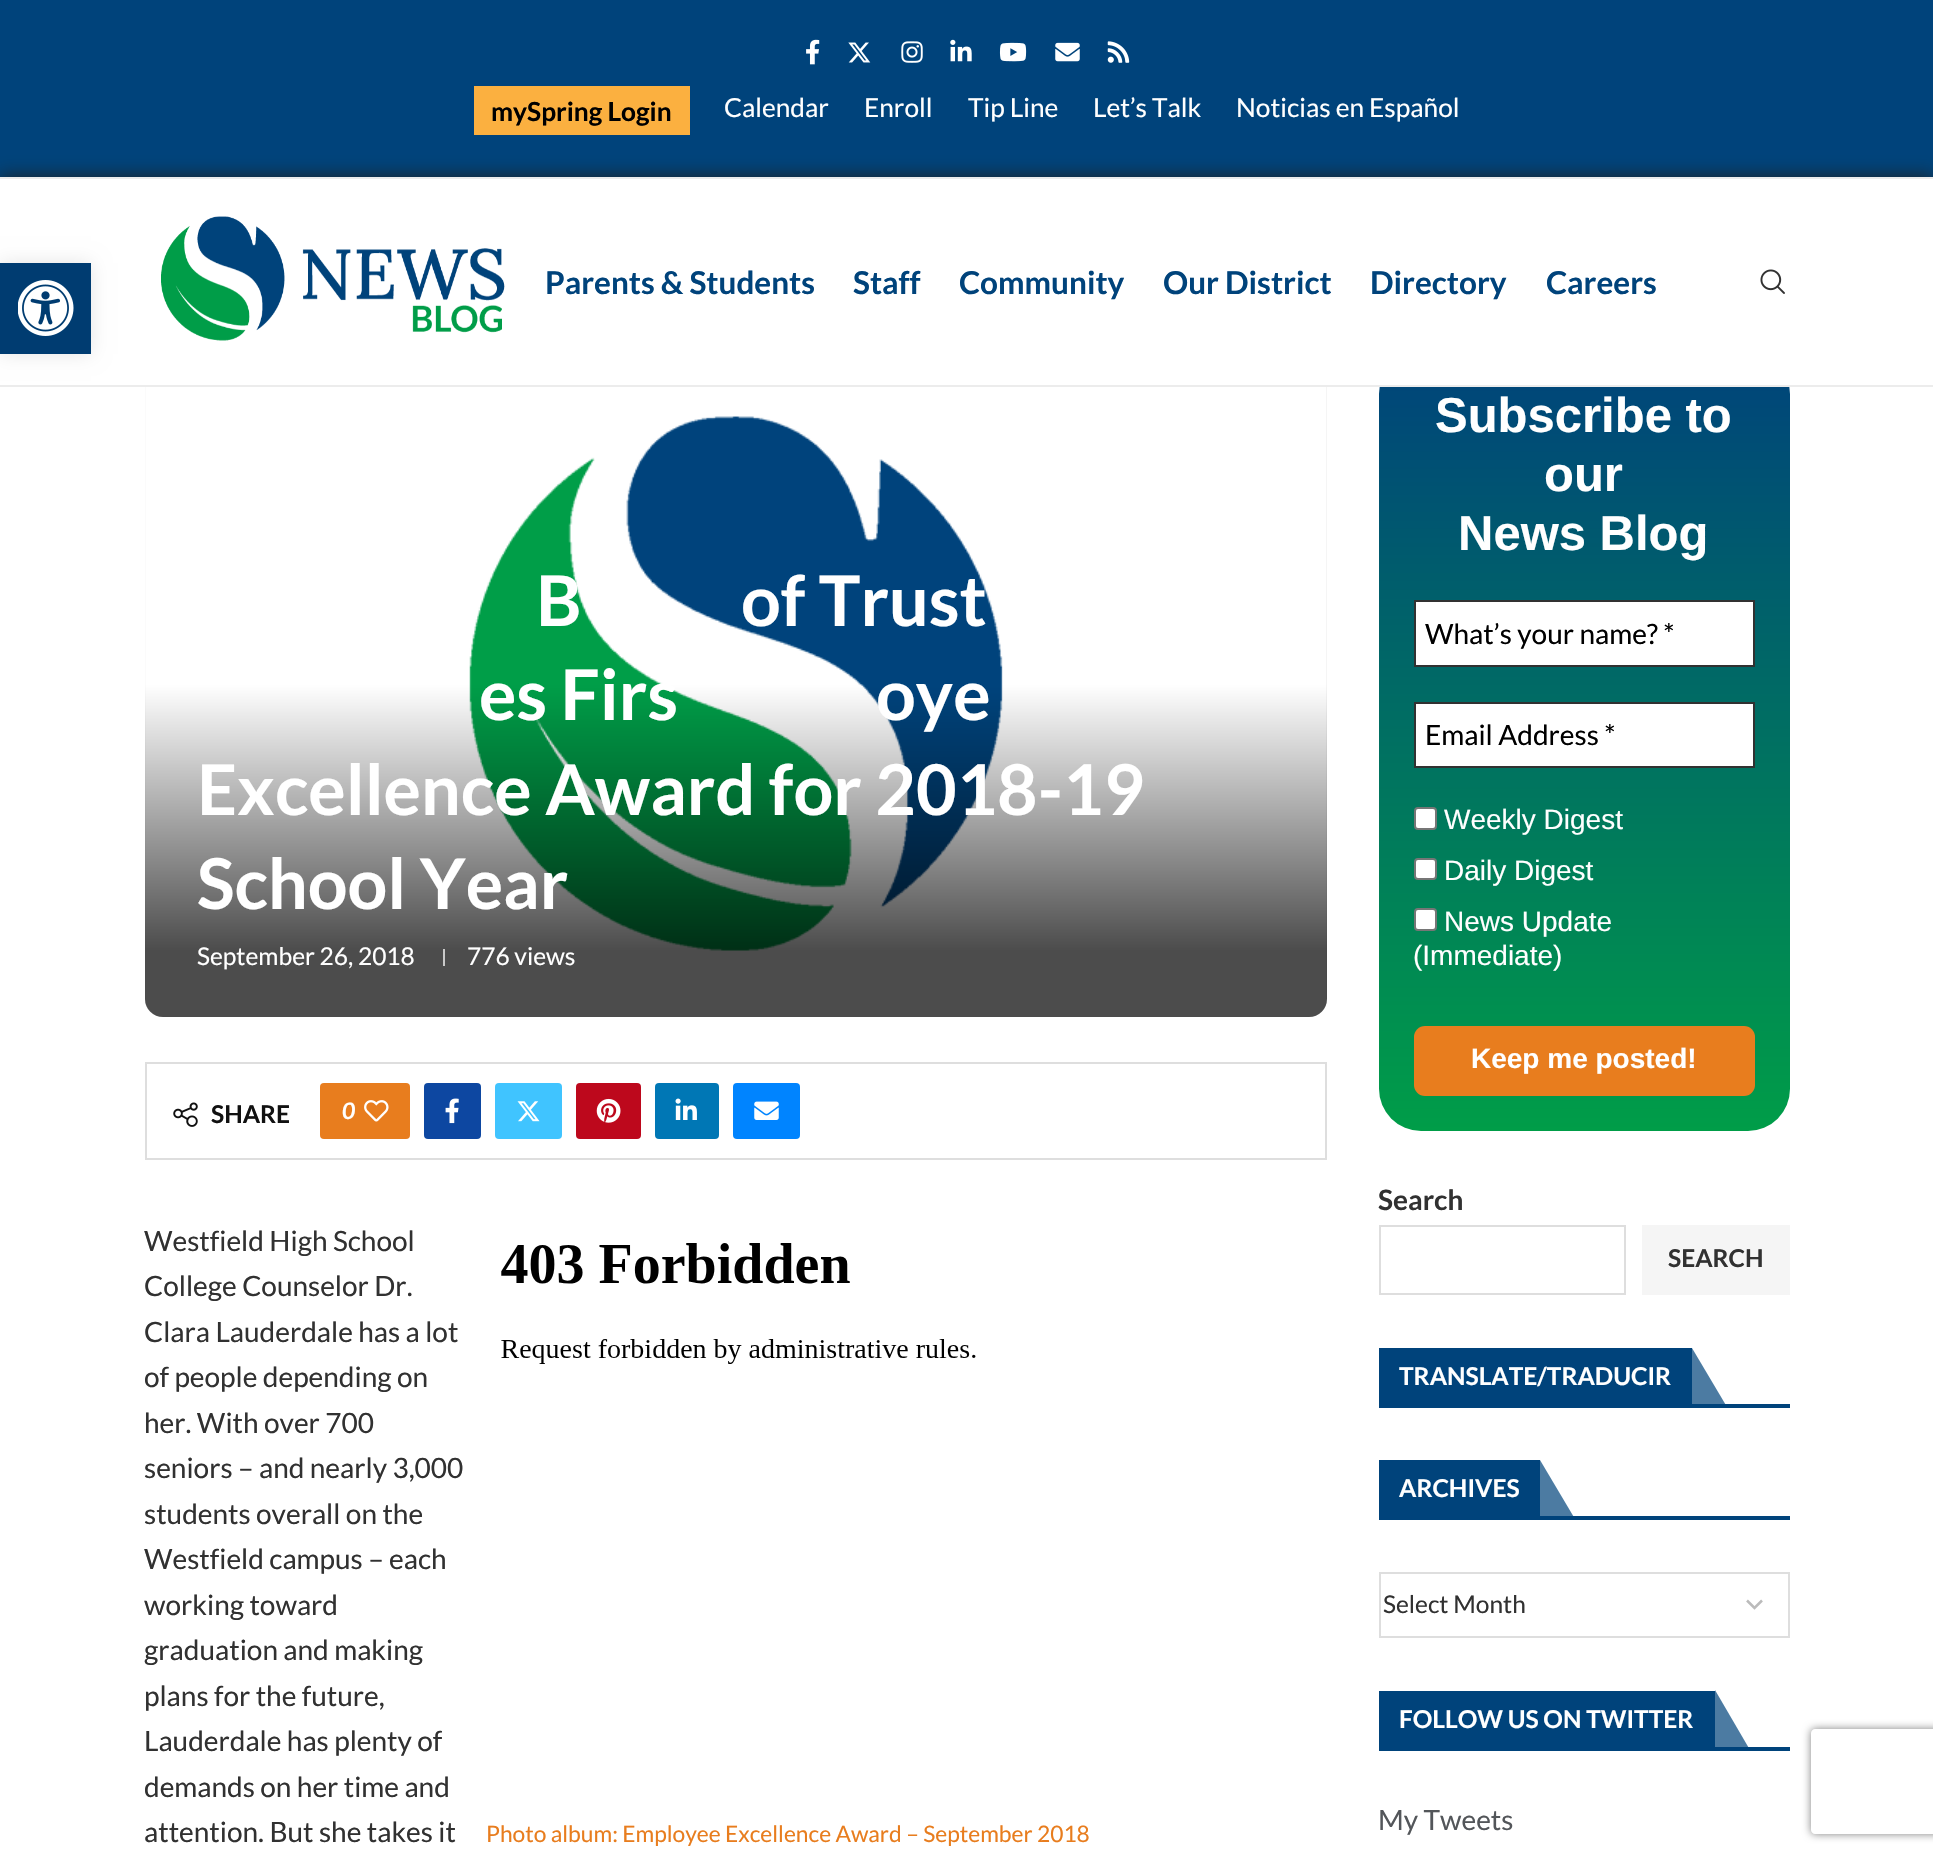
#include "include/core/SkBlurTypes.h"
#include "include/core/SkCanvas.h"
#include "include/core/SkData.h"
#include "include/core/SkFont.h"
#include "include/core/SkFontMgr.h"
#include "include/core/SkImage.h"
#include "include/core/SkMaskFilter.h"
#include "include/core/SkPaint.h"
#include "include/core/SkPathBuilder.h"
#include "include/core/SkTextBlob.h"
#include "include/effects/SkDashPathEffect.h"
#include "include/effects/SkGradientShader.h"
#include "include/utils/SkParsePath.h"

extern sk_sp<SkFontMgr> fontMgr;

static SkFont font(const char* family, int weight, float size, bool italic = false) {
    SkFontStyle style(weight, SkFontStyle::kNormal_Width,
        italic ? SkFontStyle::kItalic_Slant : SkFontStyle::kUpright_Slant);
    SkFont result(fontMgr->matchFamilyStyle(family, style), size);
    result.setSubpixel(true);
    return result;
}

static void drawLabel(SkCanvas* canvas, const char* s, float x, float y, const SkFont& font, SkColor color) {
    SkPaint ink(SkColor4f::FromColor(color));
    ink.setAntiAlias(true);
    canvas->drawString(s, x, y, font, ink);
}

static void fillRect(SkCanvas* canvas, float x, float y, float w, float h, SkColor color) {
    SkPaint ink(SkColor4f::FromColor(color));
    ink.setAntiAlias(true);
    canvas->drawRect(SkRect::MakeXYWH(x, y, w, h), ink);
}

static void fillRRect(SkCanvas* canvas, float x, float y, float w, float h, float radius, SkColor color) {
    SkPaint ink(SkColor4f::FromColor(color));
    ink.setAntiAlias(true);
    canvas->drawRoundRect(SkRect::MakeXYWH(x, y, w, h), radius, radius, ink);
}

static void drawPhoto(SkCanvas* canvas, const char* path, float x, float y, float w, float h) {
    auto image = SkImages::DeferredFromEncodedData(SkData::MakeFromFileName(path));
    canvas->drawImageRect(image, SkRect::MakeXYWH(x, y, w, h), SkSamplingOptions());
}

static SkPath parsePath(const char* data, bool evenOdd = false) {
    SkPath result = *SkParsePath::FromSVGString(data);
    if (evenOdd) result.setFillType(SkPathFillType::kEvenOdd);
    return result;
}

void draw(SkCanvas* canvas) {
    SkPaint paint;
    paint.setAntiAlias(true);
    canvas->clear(0xFFFFFFFF);
    fillRect(canvas, 0, 0, 1933, 177, 0xFF00437B);
    paint.setColor(0xFF1F1F1F);
    paint.setMaskFilter(SkMaskFilter::MakeBlur(kNormal_SkBlurStyle, 9));
    canvas->drawRect(SkRect::MakeXYWH(0, 177, 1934, 105), paint);
    paint.setMaskFilter(nullptr);
    fillRRect(canvas, 145, 352, 1182, 665, 18, 0xFFF5F5F5);
    drawPhoto(canvas, "assets/img11.png", 145, 387, 1181, 630);
    {
        const SkColor colors[] = {0x00000000, 0xB3000000};
        const float stops[] = {0.5f, 0.9f};
        const SkPoint ends[] = {{736, 352}, {736, 1017}};
        paint.setShader(SkGradientShader::MakeLinear(ends, colors, stops, 2, SkTileMode::kClamp));
        paint.setAlpha(255);
    }
    canvas->drawRoundRect(SkRect::MakeXYWH(145, 352, 1182, 665), 18, 18, paint);
    {
        const SkColor colors[] = {0xFF00437B, 0xFF009D48};
        const float stops[] = {0, 1};
        const SkPoint ends[] = {{1585, 352}, {1585, 1131}};
        paint.setShader(SkGradientShader::MakeLinear(ends, colors, stops, 2, SkTileMode::kClamp));
        paint.setAlpha(255);
    }
    canvas->drawRoundRect(SkRect::MakeXYWH(1379, 352, 411, 779), 42, 42, paint);
    fillRect(canvas, 0, 179, 1933, 206, 0xFFFFFFFF);
    paint.setShader(nullptr);
    paint.setColor(0x1A000000);
    paint.setMaskFilter(SkMaskFilter::MakeBlur(kNormal_SkBlurStyle, 9));
    canvas->drawRect(SkRect::MakeXYWH(0, 263, 91, 91), paint);
    paint.setMaskFilter(nullptr);
    fillRect(canvas, 0, 263, 91, 91, 0xFF003C71);
    drawPhoto(canvas, "assets/img1.png", 18, 280, 56, 56);
    drawPhoto(canvas, "assets/img2.png", 806, 39, 14, 26);
    drawPhoto(canvas, "assets/img3.png", 848, 42, 23, 21);
    drawPhoto(canvas, "assets/img4.png", 901, 41, 22, 22);
    drawPhoto(canvas, "assets/img5.png", 950, 39, 22, 23);
    drawPhoto(canvas, "assets/img6.png", 999, 42, 28, 20);
    drawPhoto(canvas, "assets/img7.png", 1055, 42, 25, 20);
    drawPhoto(canvas, "assets/img8.png", 1107, 41, 23, 22);
    fillRect(canvas, 474, 86, 216, 49, 0xFFFBB040);
    SkFont font1 = font("Lato", 700, 26.25f);
    drawLabel(canvas, "mySpring Login", 491, 121, font1, 0xFF000000);
    SkFont font2 = font("Lato", 400, 26.25f);
    drawLabel(canvas, "Calendar", 724, 117, font2, 0xFFFFFFFF);
    drawLabel(canvas, "Enroll", 864, 117, font2, 0xFFFFFFFF);
    drawLabel(canvas, "Tip Line", 968, 117, font2, 0xFFFFFFFF);
    drawLabel(canvas, "Let’s Talk", 1093, 117, font2, 0xFFFFFFFF);
    drawLabel(canvas, "Noticias en Español", 1236, 117, font2, 0xFFFFFFFF);
    fillRect(canvas, 0, 177, 1933, 2, 0xFFECECEC);
    fillRect(canvas, 0, 385, 1933, 2, 0xFFECECEC);
    drawPhoto(canvas, "assets/img9.png", 161, 216, 344, 125);
    SkFont font3 = font("Lato", 700, 31.5f);
    drawLabel(canvas, "Parents & Students", 545, 294, font3, 0xFF00437B);
    drawLabel(canvas, "Staff", 853, 294, font3, 0xFF00437B);
    drawLabel(canvas, "Community", 959, 294, font3, 0xFF00437B);
    drawLabel(canvas, "Our District", 1163, 294, font3, 0xFF00437B);
    drawLabel(canvas, "Directory", 1370, 294, font3, 0xFF00437B);
    drawLabel(canvas, "Careers", 1546, 294, font3, 0xFF00437B);
    drawPhoto(canvas, "assets/img10.png", 1760, 269, 25, 25);
    SkFont font4 = font("Lato", 700, 70);
    drawLabel(canvas, "B", 536, 626, font4, 0xFFFFFFFF);
    drawLabel(canvas, "of Trust", 741, 626, font4, 0xFFFFFFFF);
    drawLabel(canvas, "es Firs", 479, 720, font4, 0xFFFFFFFF);
    drawLabel(canvas, "oye", 876, 720, font4, 0xFFFFFFFF);
    drawLabel(canvas, "Excellence Award for 2018-19", 197, 815, font4, 0xFFFFFFFF);
    drawLabel(canvas, "School Year", 197, 909, font4, 0xFFFFFFFF);
    SkFont font5 = font("Lato", 400, 24.5f);
    drawLabel(canvas, "September 26, 2018", 197, 965, font5, 0xFFFFFFFF);
    fillRect(canvas, 443, 949, 2, 17, 0xFFC9C9C9);
    drawLabel(canvas, "776 views", 467, 965, font5, 0xFFFFFFFF);
    paint.setStroke(true);
    paint.setStrokeWidth(2);
    paint.setColor(0xFFDEDEDE);
    canvas->drawRect(SkRect::MakeXYWH(146, 1063, 1180, 96), paint);
    drawPhoto(canvas, "assets/img12.png", 173, 1102, 25, 25);
    SkFont font6 = font("Lato", 700, 24.5f);
    drawLabel(canvas, "SHARE", 211, 1123, font6, 0xFF111111);
    fillRRect(canvas, 320, 1083, 90, 56, 4, 0xFFE87D1E);
    SkFont font7 = font("Lato", 700, 22.75f, true);
    drawLabel(canvas, "0", 342, 1119, font7, 0xFFFFFFFF);
    drawPhoto(canvas, "assets/img13.png", 364, 1100, 25, 22);
    fillRRect(canvas, 424, 1083, 57, 56, 4, 0xFF0D47A1);
    drawPhoto(canvas, "assets/img14.png", 445, 1098, 14, 26);
    fillRRect(canvas, 495, 1083, 67, 56, 4, 0xFF40C4FF);
    drawPhoto(canvas, "assets/img15.png", 517, 1101, 23, 21);
    fillRRect(canvas, 576, 1083, 65, 56, 4, 0xFFBD081C);
    drawPhoto(canvas, "assets/img16.png", 596, 1098, 25, 25);
    fillRRect(canvas, 655, 1083, 64, 56, 4, 0xFF0077B5);
    drawPhoto(canvas, "assets/img17.png", 675, 1098, 22, 22);
    fillRRect(canvas, 733, 1083, 67, 56, 4, 0xFF0084FF);
    drawPhoto(canvas, "assets/img18.png", 754, 1101, 25, 19);
    SkFont font8 = font("Lato", 400, 28);
    drawLabel(canvas, "Westfield High School", 144, 1251, font8, 0xFF313131);
    drawLabel(canvas, "College Counselor Dr.", 144, 1296, font8, 0xFF313131);
    drawLabel(canvas, "Clara Lauderdale has a lot", 144, 1342, font8, 0xFF313131);
    drawLabel(canvas, "of people depending on", 144, 1387, font8, 0xFF313131);
    drawLabel(canvas, "her. With over 700", 144, 1433, font8, 0xFF313131);
    drawLabel(canvas, "seniors – and nearly 3,000", 144, 1478, font8, 0xFF313131);
    drawLabel(canvas, "students overall on the", 144, 1524, font8, 0xFF313131);
    drawLabel(canvas, "Westfield campus – each", 144, 1569, font8, 0xFF313131);
    drawLabel(canvas, "working toward", 144, 1615, font8, 0xFF313131);
    drawLabel(canvas, "graduation and making", 144, 1660, font8, 0xFF313131);
    drawLabel(canvas, "plans for the future,", 144, 1706, font8, 0xFF313131);
    drawLabel(canvas, "Lauderdale has plenty of", 144, 1751, font8, 0xFF313131);
    drawLabel(canvas, "demands on her time and", 144, 1797, font8, 0xFF313131);
    drawLabel(canvas, "attention. But she takes it", 144, 1842, font8, 0xFF313131);
    drawPhoto(canvas, "assets/img19.png", 501, 1243, 475, 121);
    SkFont font9 = font("Lato", 400, 22.75f);
    drawLabel(canvas, "Photo album: Employee Excellence Award – September 2018", 486, 1842, font9, 0xFFE87D1E);
    SkFont font10 = font("Liberation Sans", 700, 49);
    drawLabel(canvas, "Subscribe to", 1435, 432, font10, 0xFFFFFFFF);
    drawLabel(canvas, "our", 1544, 491, font10, 0xFFFFFFFF);
    drawLabel(canvas, "News Blog", 1458, 550, font10, 0xFFFFFFFF);
    paint.setStroke(false);
    paint.setColor(0xFFFFFFFF);
    canvas->drawRect(SkRect::MakeXYWH(1415, 601, 339, 65), paint);
    paint.setStroke(true);
    paint.setColor(0xFF313131);
    canvas->drawRect(SkRect::MakeXYWH(1415, 601, 339, 65), paint);
    drawLabel(canvas, "What’s your name? *", 1425, 644, font8, 0xFF000000);
    paint.setStroke(false);
    paint.setColor(0xFFFFFFFF);
    canvas->drawRect(SkRect::MakeXYWH(1415, 703, 339, 64), paint);
    paint.setStroke(true);
    paint.setColor(0xFF313131);
    canvas->drawRect(SkRect::MakeXYWH(1415, 703, 339, 64), paint);
    drawLabel(canvas, "Email Address *", 1425, 745, font8, 0xFF000000);
    paint.setStroke(false);
    paint.setColor(0xFFFFFFFF);
    canvas->drawRoundRect(SkRect::MakeXYWH(1415, 808, 21, 21), 3, 3, paint);
    paint.setStroke(true);
    paint.setColor(0xFF767676);
    canvas->drawRoundRect(SkRect::MakeXYWH(1415, 808, 21, 21), 3, 3, paint);
    SkFont font11 = font("Liberation Sans", 400, 28);
    drawLabel(canvas, "Weekly Digest", 1444, 829, font11, 0xFFFFFFFF);
    paint.setStroke(false);
    paint.setColor(0xFFFFFFFF);
    canvas->drawRoundRect(SkRect::MakeXYWH(1415, 859, 21, 20), 3, 3, paint);
    paint.setStroke(true);
    paint.setColor(0xFF767676);
    canvas->drawRoundRect(SkRect::MakeXYWH(1415, 859, 21, 20), 3, 3, paint);
    drawLabel(canvas, "Daily Digest", 1444, 880, font11, 0xFFFFFFFF);
    paint.setStroke(false);
    paint.setColor(0xFFFFFFFF);
    canvas->drawRoundRect(SkRect::MakeXYWH(1415, 909, 21, 21), 3, 3, paint);
    paint.setStroke(true);
    paint.setColor(0xFF767676);
    canvas->drawRoundRect(SkRect::MakeXYWH(1415, 909, 21, 21), 3, 3, paint);
    drawLabel(canvas, "News Update", 1444, 931, font11, 0xFFFFFFFF);
    drawLabel(canvas, "(Immediate)", 1413, 965, font11, 0xFFFFFFFF);
    fillRRect(canvas, 1414, 1026, 341, 70, 11, 0xFFE87D1E);
    SkFont font12 = font("Liberation Sans", 700, 28);
    drawLabel(canvas, "Keep me posted!", 1471, 1068, font12, 0xFFFFFFFF);
    canvas->save();
    canvas->clipPath(parsePath("M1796 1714H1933V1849H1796ZM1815 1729H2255C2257 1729 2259 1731 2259 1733V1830C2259 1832 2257 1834 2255 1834H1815C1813 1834 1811 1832 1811 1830V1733C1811 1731 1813 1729 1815 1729Z", true), true);
    paint.setStroke(false);
    paint.setColor(0xFF808080);
    paint.setMaskFilter(SkMaskFilter::MakeBlur(kNormal_SkBlurStyle, 4.5f));
    canvas->drawRoundRect(SkRect::MakeXYWH(1811, 1729, 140, 105), 4, 4, paint);
    paint.setMaskFilter(nullptr);
    canvas->restore();
    SkFont font13 = font("Lato", 700, 28);
    drawLabel(canvas, "Search", 1378, 1210, font13, 0xFF313131);
    paint.setStroke(true);
    paint.setColor(0xFFDEDEDE);
    canvas->drawRect(SkRect::MakeXYWH(1380, 1226, 245, 68), paint);
    fillRect(canvas, 1642, 1225, 148, 70, 0xFFF5F5F5);
    drawLabel(canvas, "SEARCH", 1668, 1267, font6, 0xFF313131);
    fillRect(canvas, 1379, 1404, 411, 4, 0xFF00437B);
    fillRect(canvas, 1379, 1348, 313, 56, 0xFF00437B);
    drawLabel(canvas, "TRANSLATE/TRADUCIR", 1399, 1385, font6, 0xFFFFFFFF);
    paint.setStroke(false);
    paint.setColor(0xB300437B);
    canvas->drawPath(parsePath("M1727 1407H1692V1348Z"), paint);
    fillRect(canvas, 1379, 1516, 411, 4, 0xFF00437B);
    fillRect(canvas, 1379, 1460, 161, 56, 0xFF00437B);
    drawLabel(canvas, "ARCHIVES", 1399, 1497, font6, 0xFFFFFFFF);
    canvas->drawPath(parsePath("M1575 1519H1540V1460Z"), paint);
    paint.setStroke(true);
    paint.setStrokeWidth(2.5f);
    paint.setColor(0xFFBBBBBB);
    canvas->drawPath(parsePath("M1747 1600.5L1754.5 1608L1762 1600.5"), paint);
    paint.setStrokeWidth(2);
    paint.setColor(0xFFDEDEDE);
    canvas->drawRect(SkRect::MakeXYWH(1380, 1573, 409, 64), paint);
    drawLabel(canvas, "Select Month", 1383, 1613, font5, 0xFF313131);
    fillRect(canvas, 1379, 1747, 411, 4, 0xFF00437B);
    fillRect(canvas, 1379, 1691, 336, 56, 0xFF00437B);
    drawLabel(canvas, "FOLLOW US ON TWITTER", 1399, 1728, font6, 0xFFFFFFFF);
    paint.setStroke(false);
    paint.setColor(0xB300437B);
    canvas->drawPath(parsePath("M1750 1750H1715V1690Z"), paint);
    drawLabel(canvas, "My Tweets", 1378, 1830, font8, 0xFF53565A);
}
